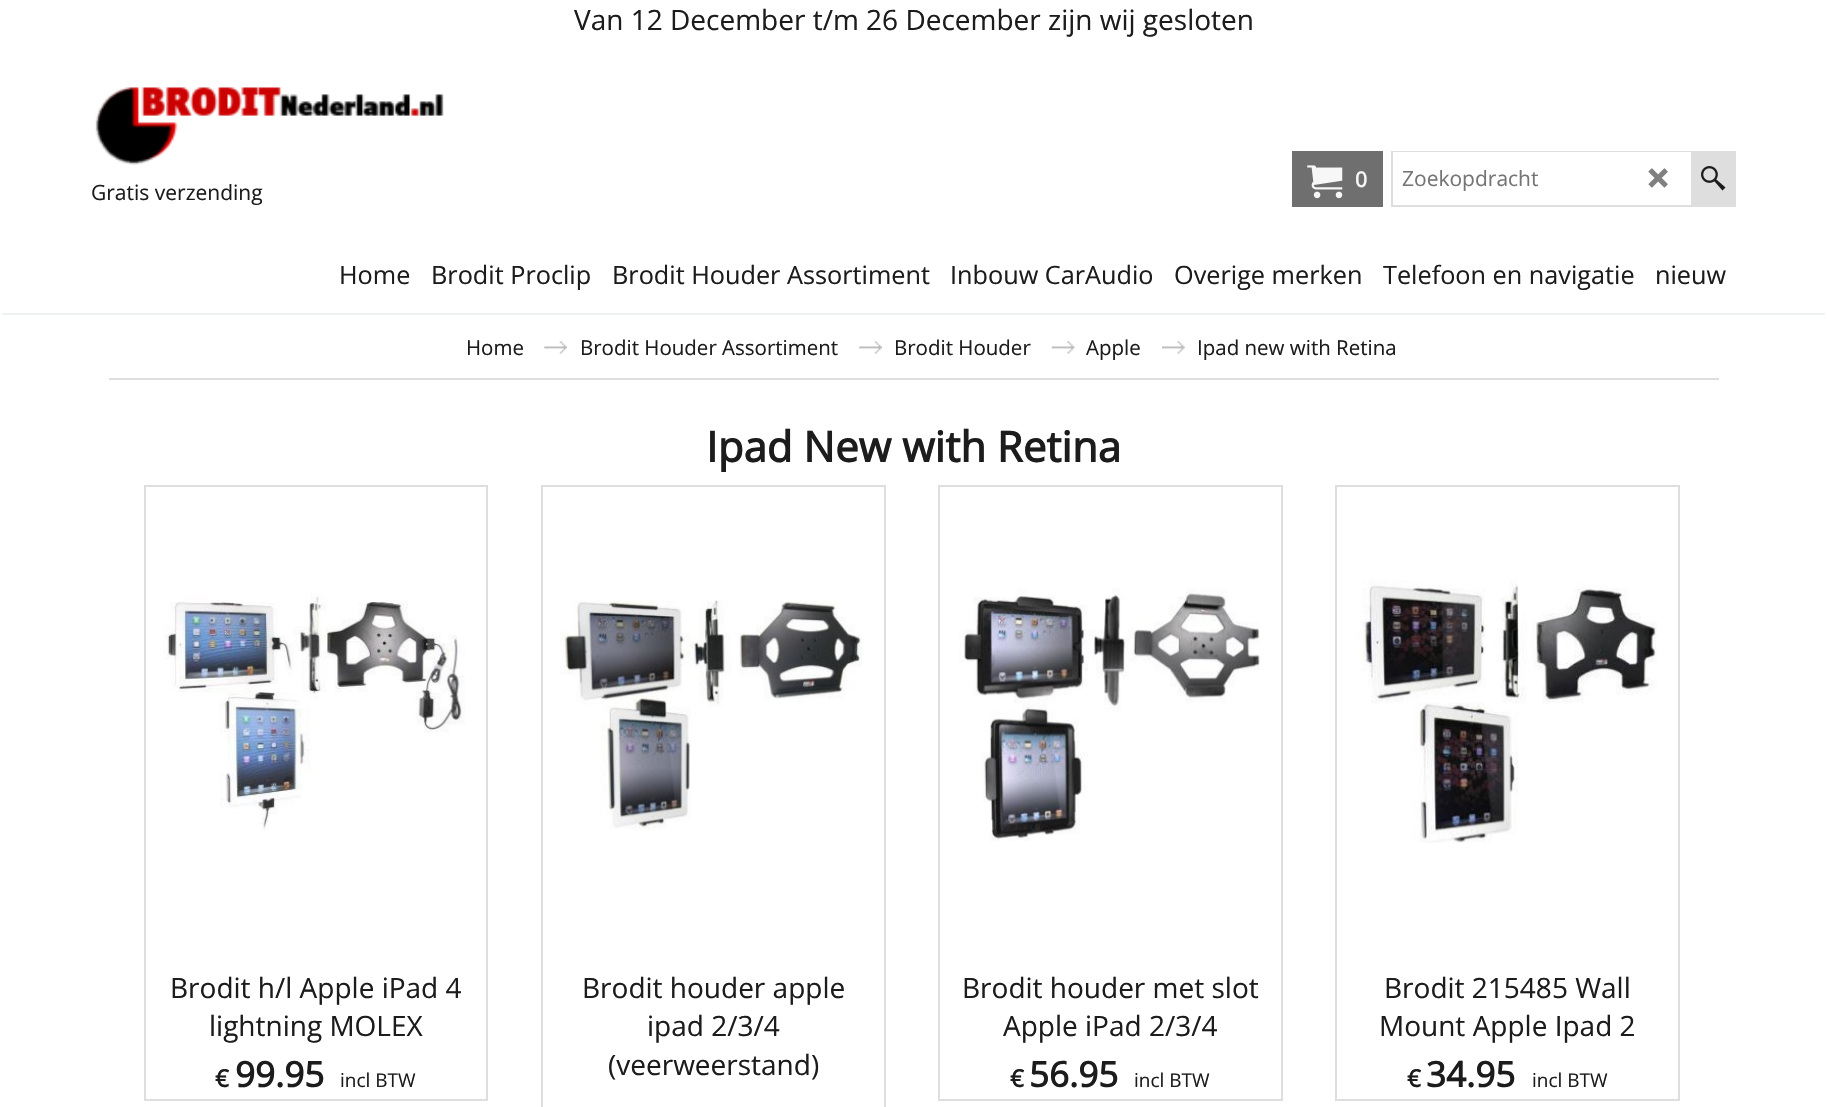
#include "include/core/SkBlurTypes.h"
#include "include/core/SkCanvas.h"
#include "include/core/SkData.h"
#include "include/core/SkFont.h"
#include "include/core/SkFontMgr.h"
#include "include/core/SkImage.h"
#include "include/core/SkMaskFilter.h"
#include "include/core/SkPaint.h"
#include "include/core/SkPathBuilder.h"
#include "include/core/SkTextBlob.h"
#include "include/effects/SkDashPathEffect.h"
#include "include/effects/SkGradientShader.h"
#include "include/utils/SkParsePath.h"

extern sk_sp<SkFontMgr> fontMgr;

static SkFont font(const char* family, int weight, float size, bool italic = false) {
    SkFontStyle style(weight, SkFontStyle::kNormal_Width,
        italic ? SkFontStyle::kItalic_Slant : SkFontStyle::kUpright_Slant);
    SkFont result(fontMgr->matchFamilyStyle(family, style), size);
    result.setSubpixel(true);
    return result;
}

static void drawLabel(SkCanvas* canvas, const char* s, float x, float y, const SkFont& font, SkColor color) {
    SkPaint ink(SkColor4f::FromColor(color));
    ink.setAntiAlias(true);
    canvas->drawString(s, x, y, font, ink);
}

static void fillRect(SkCanvas* canvas, float x, float y, float w, float h, SkColor color) {
    SkPaint ink(SkColor4f::FromColor(color));
    ink.setAntiAlias(true);
    canvas->drawRect(SkRect::MakeXYWH(x, y, w, h), ink);
}

static void drawPhoto(SkCanvas* canvas, const char* path, float x, float y, float w, float h) {
    auto image = SkImages::DeferredFromEncodedData(SkData::MakeFromFileName(path));
    canvas->drawImageRect(image, SkRect::MakeXYWH(x, y, w, h), SkSamplingOptions());
}

void draw(SkCanvas* canvas) {
    SkPaint paint;
    paint.setAntiAlias(true);
    canvas->clear(0xFFFFFFFF);
    SkFont font1 = font("Open Sans", 400, 28);
    drawLabel(canvas, "Van 12 December t/m 26 December zijn wij gesloten", 574, 30, font1, 0xFF1C1C1C);
    fillRect(canvas, 1292, 151, 91, 56, 0xFF6F6F6F);
    drawPhoto(canvas, "assets/img1.png", 1307, 165, 36, 34);
    SkFont font2 = font("Open Sans", 700, 21);
    drawLabel(canvas, "0", 1355, 187, font2, 0xFFF7F7F7);
    fillRect(canvas, 1391, 151, 345, 56, 0xFFDEDEDE);
    fillRect(canvas, 1393, 152, 298, 53, 0xFFFFFFFF);
    SkFont font3 = font("Open Sans", 400, 21);
    drawLabel(canvas, "Zoekopdracht", 1402, 186, font3, 0xFF757575);
    drawPhoto(canvas, "assets/img2.png", 1648, 168, 20, 20);
    drawPhoto(canvas, "assets/img3.png", 1701, 166, 25, 25);
    drawPhoto(canvas, "assets/img4.png", 95, 87, 349, 78);
    drawLabel(canvas, "Gratis verzending", 91, 200, font3, 0xFF1C1C1C);
    SkFont font4 = font("Open Sans", 400, 25.25f);
    drawLabel(canvas, "Home", 339, 284, font4, 0xFF1C1C1C);
    drawLabel(canvas, "Brodit Proclip", 431, 284, font4, 0xFF1C1C1C);
    drawLabel(canvas, "Brodit Houder Assortiment", 612, 284, font4, 0xFF1C1C1C);
    drawLabel(canvas, "Inbouw CarAudio", 950, 284, font4, 0xFF1C1C1C);
    drawLabel(canvas, "Overige merken", 1174, 284, font4, 0xFF1C1C1C);
    drawLabel(canvas, "Telefoon en navigatie", 1383, 284, font4, 0xFF1C1C1C);
    drawLabel(canvas, "nieuw", 1655, 284, font4, 0xFF1C1C1C);
    fillRect(canvas, 2, 313, 1823, 2, 0xFFEEF2F5);
    fillRect(canvas, 109, 378, 1610, 2, 0xFFDEDEDE);
    SkFont font5 = font("Open Sans", 400, 20.5f);
    drawLabel(canvas, "Home", 466, 355, font5, 0xFF1C1C1C);
    drawPhoto(canvas, "assets/img5.png", 544, 341, 23, 13);
    drawLabel(canvas, "Brodit Houder Assortiment", 580, 355, font5, 0xFF1C1C1C);
    drawPhoto(canvas, "assets/img6.png", 859, 341, 23, 13);
    drawLabel(canvas, "Brodit Houder", 894, 355, font5, 0xFF1C1C1C);
    drawPhoto(canvas, "assets/img7.png", 1051, 341, 24, 13);
    drawLabel(canvas, "Apple", 1086, 355, font5, 0xFF1C1C1C);
    drawPhoto(canvas, "assets/img8.png", 1162, 341, 23, 13);
    drawLabel(canvas, "Ipad new with Retina", 1197, 355, font5, 0xFF1C1C1C);
    SkFont font6 = font("Open Sans", 700, 42);
    drawLabel(canvas, "Ipad New with Retina", 706, 462, font6, 0xFF1C1C1C);
    paint.setStroke(true);
    paint.setStrokeWidth(2);
    paint.setColor(0xFFDEDEDE);
    canvas->drawRect(SkRect::MakeXYWH(145, 486, 342, 614), paint);
    drawPhoto(canvas, "assets/img9.png", 164, 594, 301, 237);
    drawLabel(canvas, "Brodit h/l Apple iPad 4", 170, 998, font1, 0xFF1C1C1C);
    drawLabel(canvas, "lightning MOLEX", 209, 1036, font1, 0xFF1C1C1C);
    SkFont font7 = font("Open Sans", 700, 24);
    drawLabel(canvas, "€", 215, 1087, font7, 0xFF1C1C1C);
    SkFont font8 = font("Open Sans", 700, 35);
    drawLabel(canvas, "99.95", 235, 1087, font8, 0xFF1C1C1C);
    SkFont font9 = font("Open Sans", 400, 19);
    drawLabel(canvas, "incl BTW", 340, 1087, font9, 0xFF1C1C1C);
    canvas->drawRect(SkRect::MakeXYWH(542, 486, 343, 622), paint);
    drawPhoto(canvas, "assets/img10.png", 560, 600, 302, 231);
    drawLabel(canvas, "Brodit houder apple", 582, 998, font1, 0xFF1C1C1C);
    drawLabel(canvas, "ipad 2/3/4", 647, 1036, font1, 0xFF1C1C1C);
    drawLabel(canvas, "(veerweerstand)", 608, 1075, font1, 0xFF1C1C1C);
    canvas->drawRect(SkRect::MakeXYWH(939, 486, 343, 614), paint);
    drawPhoto(canvas, "assets/img11.png", 959, 588, 301, 253);
    drawLabel(canvas, "Brodit houder met slot", 962, 998, font1, 0xFF1C1C1C);
    drawLabel(canvas, "Apple iPad 2/3/4", 1003, 1036, font1, 0xFF1C1C1C);
    drawLabel(canvas, "€", 1010, 1087, font7, 0xFF1C1C1C);
    drawLabel(canvas, "56.95", 1029, 1087, font8, 0xFF1C1C1C);
    drawLabel(canvas, "incl BTW", 1134, 1087, font9, 0xFF1C1C1C);
    canvas->drawRect(SkRect::MakeXYWH(1336, 486, 343, 614), paint);
    drawPhoto(canvas, "assets/img12.png", 1355, 580, 302, 263);
    drawLabel(canvas, "Brodit 215485 Wall", 1384, 998, font1, 0xFF1C1C1C);
    drawLabel(canvas, "Mount Apple Ipad 2", 1379, 1036, font1, 0xFF1C1C1C);
    drawLabel(canvas, "€", 1407, 1087, font7, 0xFF1C1C1C);
    drawLabel(canvas, "34.95", 1426, 1087, font8, 0xFF1C1C1C);
    drawLabel(canvas, "incl BTW", 1532, 1087, font9, 0xFF1C1C1C);
}
